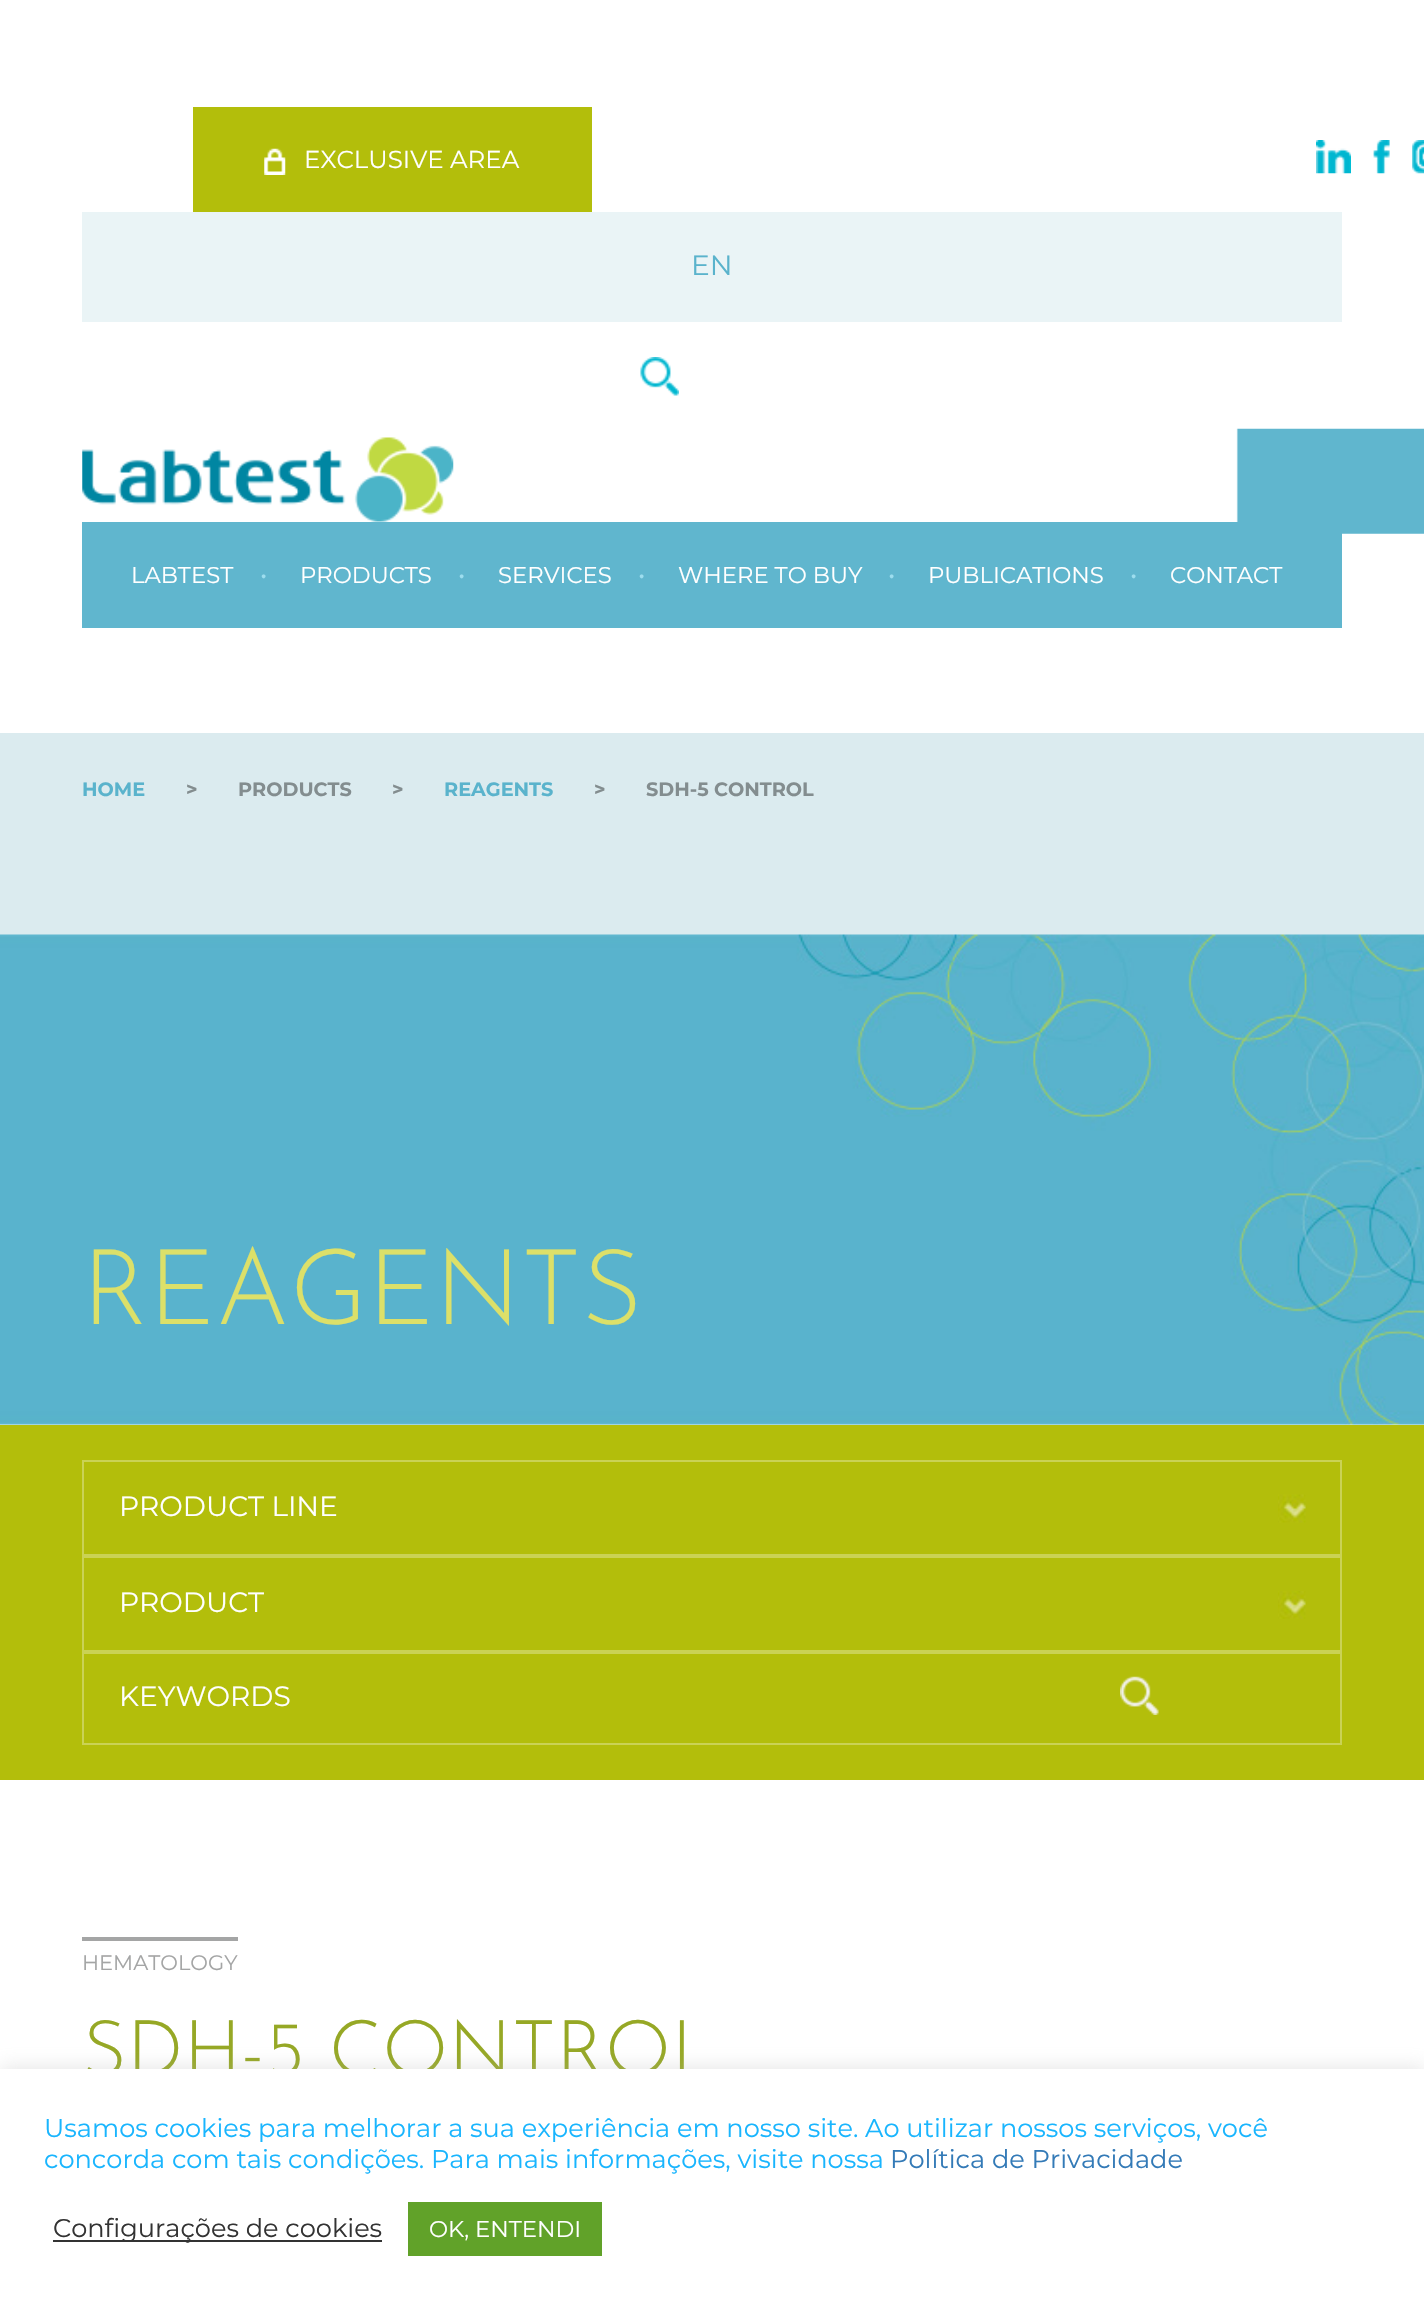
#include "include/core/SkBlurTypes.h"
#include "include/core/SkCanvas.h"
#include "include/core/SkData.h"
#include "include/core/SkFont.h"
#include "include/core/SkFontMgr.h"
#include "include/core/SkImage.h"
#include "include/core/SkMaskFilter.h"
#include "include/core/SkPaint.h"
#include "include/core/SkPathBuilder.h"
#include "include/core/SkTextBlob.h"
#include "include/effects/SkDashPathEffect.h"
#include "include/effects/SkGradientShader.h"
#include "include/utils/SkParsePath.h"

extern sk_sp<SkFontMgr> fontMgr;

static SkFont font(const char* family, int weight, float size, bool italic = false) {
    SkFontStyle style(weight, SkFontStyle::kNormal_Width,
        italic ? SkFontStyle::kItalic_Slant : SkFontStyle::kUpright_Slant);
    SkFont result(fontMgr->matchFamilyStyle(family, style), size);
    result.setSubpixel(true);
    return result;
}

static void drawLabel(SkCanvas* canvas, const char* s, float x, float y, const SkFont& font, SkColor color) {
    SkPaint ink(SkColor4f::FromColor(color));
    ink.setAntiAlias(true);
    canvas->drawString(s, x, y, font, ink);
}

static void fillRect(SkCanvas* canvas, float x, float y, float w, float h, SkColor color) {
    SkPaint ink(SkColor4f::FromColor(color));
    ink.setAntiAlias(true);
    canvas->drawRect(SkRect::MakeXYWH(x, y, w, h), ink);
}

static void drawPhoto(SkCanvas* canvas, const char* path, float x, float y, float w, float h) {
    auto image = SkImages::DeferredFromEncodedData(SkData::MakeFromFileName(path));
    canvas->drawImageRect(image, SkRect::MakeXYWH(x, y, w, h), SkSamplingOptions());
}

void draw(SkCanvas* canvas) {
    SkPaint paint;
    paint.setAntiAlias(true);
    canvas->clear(0xFFE3F0F3);
    fillRect(canvas, 0, 0, 1424, 733, 0xFFFFFFFF);
    fillRect(canvas, 193, 107, 399, 105, 0xFFB3BE0B);
    drawPhoto(canvas, "assets/img1.png", 264, 148, 22, 27);
    SkFont font1 = font("Montserrat", 400, 24.5f);
    drawLabel(canvas, "EXCLUSIVE AREA", 304, 168, font1, 0xFFFFFFFF);
    drawPhoto(canvas, "assets/img2.png", 1316, 140, 35, 34);
    drawPhoto(canvas, "assets/img3.png", 1373, 140, 17, 34);
    drawPhoto(canvas, "assets/img4.png", 1412, 140, 12, 34);
    fillRect(canvas, 82, 212, 1260, 110, 0xFFEAF4F6);
    SkFont font2 = font("Montserrat", 400, 28);
    drawLabel(canvas, "EN", 691, 275, font2, 0xFF5AB3CC);
    drawPhoto(canvas, "assets/img5.png", 640, 357, 39, 39);
    drawPhoto(canvas, "assets/img6.png", 1236, 428, 188, 106);
    drawPhoto(canvas, "assets/img7.png", 82, 437, 372, 85);
    fillRect(canvas, 82, 522, 1260, 106, 0xFF60B6CE);
    SkFont font3 = font("Montserrat", 400, 22.75f);
    drawLabel(canvas, "LABTEST", 131, 583, font3, 0xFFFFFFFF);
    drawLabel(canvas, "•", 260, 583, font1, 0xFF9DDDEE);
    drawLabel(canvas, "PRODUCTS", 300, 583, font3, 0xFFFFFFFF);
    drawLabel(canvas, "•", 458, 583, font1, 0xFF9DDDEE);
    drawLabel(canvas, "SERVICES", 498, 583, font3, 0xFFFFFFFF);
    drawLabel(canvas, "•", 638, 583, font1, 0xFF9DDDEE);
    drawLabel(canvas, "WHERE TO BUY", 678, 583, font3, 0xFFFFFFFF);
    drawLabel(canvas, "•", 888, 583, font1, 0xFF9DDDEE);
    drawLabel(canvas, "PUBLICATIONS", 928, 583, font3, 0xFFFFFFFF);
    drawLabel(canvas, "•", 1130, 583, font1, 0xFF9DDDEE);
    drawLabel(canvas, "CONTACT", 1170, 583, font3, 0xFFFFFFFF);
    fillRect(canvas, 0, 733, 1424, 202, 0xFFDBEBEF);
    SkFont font4 = font("Montserrat", 700, 19.25f);
    drawLabel(canvas, "HOME", 82, 796, font4, 0xFF5AB3CC);
    drawLabel(canvas, ">", 186, 796, font4, 0xFF838D8F);
    drawLabel(canvas, "PRODUCTS", 238, 796, font4, 0xFF838D8F);
    drawLabel(canvas, ">", 392, 796, font4, 0xFF838D8F);
    drawLabel(canvas, "REAGENTS", 444, 796, font4, 0xFF5AB3CC);
    drawLabel(canvas, ">", 594, 796, font4, 0xFF838D8F);
    drawLabel(canvas, "SDH-5 CONTROL", 646, 796, font4, 0xFF838D8F);
    drawPhoto(canvas, "assets/img8.png", 0, 934, 1424, 491);
    SkFont font5 = font("Josefin Sans", 100, 105);
    drawLabel(canvas, "REAGENTS", 82, 1324, font5, 0xFFDCE069);
    fillRect(canvas, 0, 1425, 1424, 355, 0xFFB3BE0B);
    drawPhoto(canvas, "assets/img9.png", 1278, 1494, 28, 29);
    paint.setStroke(true);
    paint.setStrokeWidth(2);
    paint.setColor(0xFFCAD255);
    canvas->drawRect(SkRect::MakeXYWH(83, 1461, 1258, 94), paint);
    drawLabel(canvas, "PRODUCT LINE", 119, 1516, font2, 0xFFFFFFFF);
    drawPhoto(canvas, "assets/img10.png", 1278, 1591, 28, 28);
    canvas->drawRect(SkRect::MakeXYWH(83, 1557, 1258, 94), paint);
    drawLabel(canvas, "PRODUCT", 119, 1612, font2, 0xFFFFFFFF);
    canvas->drawRect(SkRect::MakeXYWH(83, 1653, 1258, 91), paint);
    drawLabel(canvas, "KEYWORDS", 119, 1706, font2, 0xFFFFFFFF);
    drawPhoto(canvas, "assets/img11.png", 1120, 1676, 39, 39);
    fillRect(canvas, 0, 1780, 1424, 289, 0xFFFFFFFF);
    SkFont font6 = font("Montserrat", 400, 21);
    drawLabel(canvas, "HEMATOLOGY", 82, 1970, font6, 0xFFA4A5A5);
    fillRect(canvas, 82, 1937, 156, 4, 0xFFA4A5A5);
    SkFont font7 = font("Josefin Sans", 100, 77);
    drawLabel(canvas, "SDH-5 CONTROL", 82, 2075, font7, 0xFF96A825);
    paint.setStroke(false);
    paint.setColor(0x4DACABAB);
    paint.setMaskFilter(SkMaskFilter::MakeBlur(kNormal_SkBlurStyle, 9));
    canvas->drawRect(SkRect::MakeXYWH(0, 2067, 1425, 240), paint);
    paint.setMaskFilter(nullptr);
    fillRect(canvas, 0, 2069, 1424, 239, 0xFFFFFFFF);
    SkFont font8 = font("Montserrat", 400, 25.65f);
    drawLabel(canvas, "Usamos cookies para melhorar a sua experiência em nosso site. Ao utilizar nossos serviços, você", 44, 2137, font8, 0xFF19B5FE);
    drawLabel(canvas, "concorda com tais condições. Para mais informações, visite nossa", 44, 2168, font8, 0xFF19B5FE);
    drawLabel(canvas, "Política de Privacidade", 890, 2168, font8, 0xFF337AB7);
    fillRect(canvas, 53, 2240, 329, 2, 0xFF333333);
    drawLabel(canvas, "Configurações de cookies", 53, 2237, font8, 0xFF333333);
    fillRect(canvas, 408, 2202, 194, 54, 0xFF61A229);
    drawLabel(canvas, "OK, ENTENDI", 429, 2237, font3, 0xFFFFFFFF);
}
